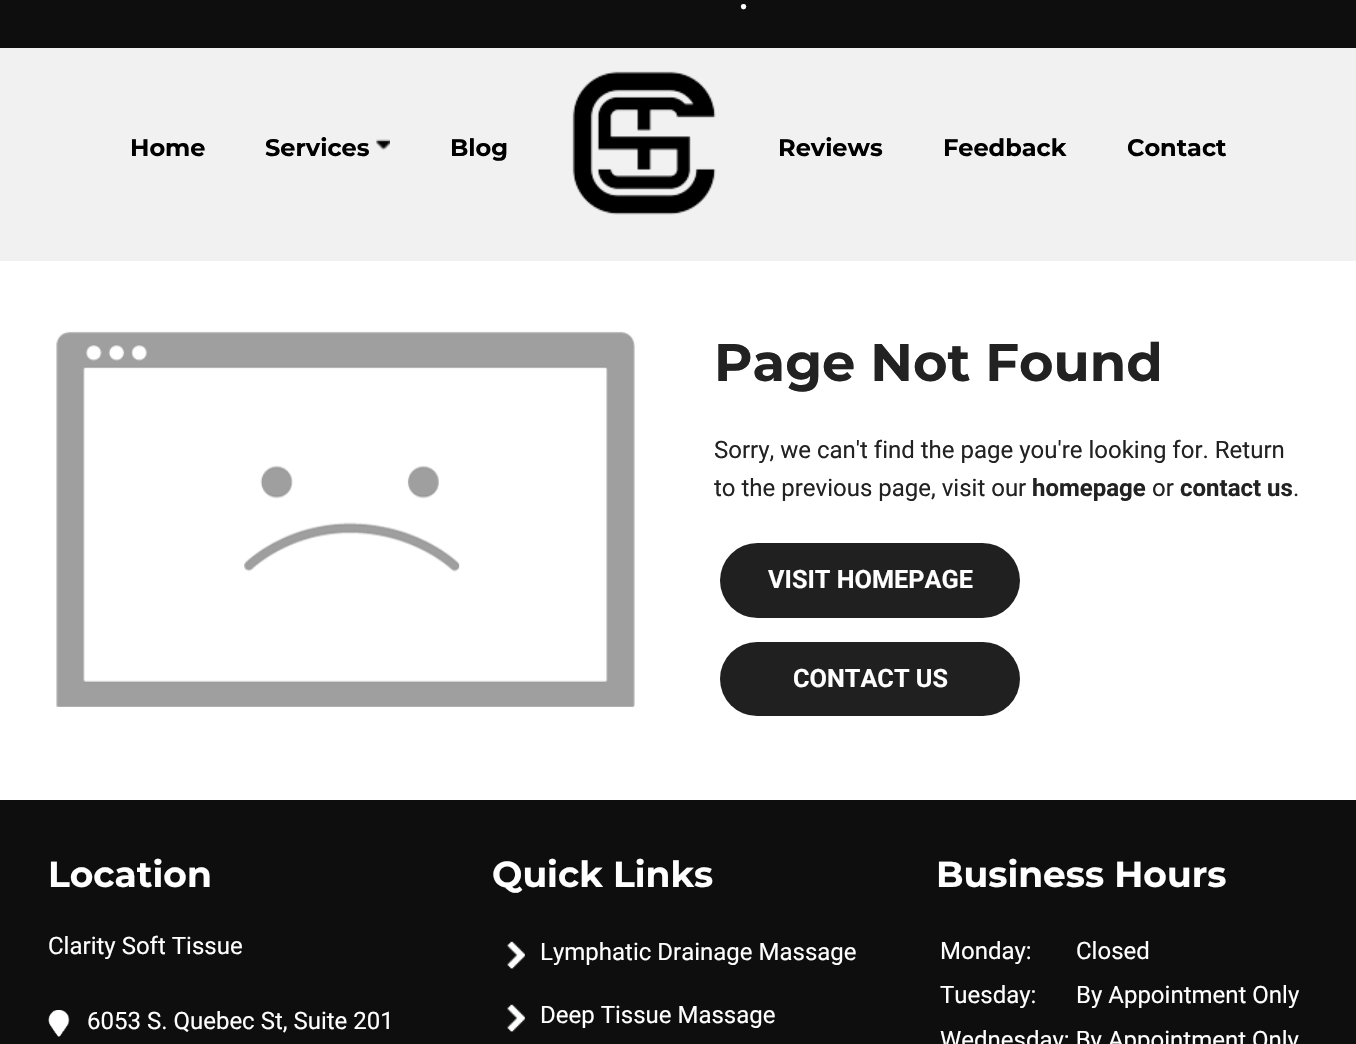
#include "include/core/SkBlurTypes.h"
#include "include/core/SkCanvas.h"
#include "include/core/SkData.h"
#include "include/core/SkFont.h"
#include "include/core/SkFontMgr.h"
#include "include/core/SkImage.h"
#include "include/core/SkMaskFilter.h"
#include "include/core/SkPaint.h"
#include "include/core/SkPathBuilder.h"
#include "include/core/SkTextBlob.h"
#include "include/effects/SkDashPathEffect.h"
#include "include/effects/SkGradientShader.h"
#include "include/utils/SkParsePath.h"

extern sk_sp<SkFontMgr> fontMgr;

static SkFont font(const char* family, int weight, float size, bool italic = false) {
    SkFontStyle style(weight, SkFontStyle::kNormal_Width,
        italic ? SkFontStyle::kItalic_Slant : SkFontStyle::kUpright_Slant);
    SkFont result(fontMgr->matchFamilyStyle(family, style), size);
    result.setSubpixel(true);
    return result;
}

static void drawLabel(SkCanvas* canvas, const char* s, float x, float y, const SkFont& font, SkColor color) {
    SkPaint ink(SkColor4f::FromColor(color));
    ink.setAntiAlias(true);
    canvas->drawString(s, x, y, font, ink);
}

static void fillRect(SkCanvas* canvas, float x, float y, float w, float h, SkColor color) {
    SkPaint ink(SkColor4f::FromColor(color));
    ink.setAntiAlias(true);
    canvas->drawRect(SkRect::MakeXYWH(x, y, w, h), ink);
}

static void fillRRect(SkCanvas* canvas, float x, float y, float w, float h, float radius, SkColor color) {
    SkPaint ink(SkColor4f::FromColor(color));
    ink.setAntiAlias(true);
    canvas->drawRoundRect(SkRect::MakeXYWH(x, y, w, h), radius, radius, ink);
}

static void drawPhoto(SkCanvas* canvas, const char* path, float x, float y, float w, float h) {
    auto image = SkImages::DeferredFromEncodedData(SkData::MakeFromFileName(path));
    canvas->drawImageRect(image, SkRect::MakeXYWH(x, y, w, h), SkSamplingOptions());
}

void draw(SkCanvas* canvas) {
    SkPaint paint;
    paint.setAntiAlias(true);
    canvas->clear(0xFFFFFFFF);
    fillRect(canvas, 0, 48, 1356, 213, 0xFFF1F1F1);
    fillRect(canvas, 0, 0, 1356, 48, 0xFF0E0E0E);
    SkFont font1 = font("Montserrat", 100, 27);
    drawLabel(canvas, ".", 740, 9, font1, 0xFFFFFFFF);
    SkFont font2 = font("Montserrat", 100, 24);
    drawLabel(canvas, "Home", 130, 156, font2, 0xFF000000);
    drawLabel(canvas, "Services", 265, 156, font2, 0xFF000000);
    drawPhoto(canvas, "assets/img1.png", 376, 139, 14, 12);
    drawLabel(canvas, "Blog", 450, 156, font2, 0xFF000000);
    drawPhoto(canvas, "assets/img2.png", 572, 71, 144, 144);
    drawLabel(canvas, "Reviews", 778, 156, font2, 0xFF000000);
    drawLabel(canvas, "Feedback", 943, 156, font2, 0xFF000000);
    drawLabel(canvas, "Contact", 1127, 156, font2, 0xFF000000);
    drawPhoto(canvas, "assets/img3.png", 56, 331, 579, 376);
    SkFont font3 = font("Montserrat", 100, 52.75f);
    drawLabel(canvas, "Page Not Found", 714, 381, font3, 0xFF222222);
    SkFont font4 = font("Roboto", 400, 24);
    drawLabel(canvas, "Sorry, we can't find the page you're looking for. Return", 714, 458, font4, 0xFF222222);
    drawLabel(canvas, "to the previous page, visit our", 714, 496, font4, 0xFF222222);
    SkFont font5 = font("Roboto", 700, 24);
    drawLabel(canvas, "homepage", 1032, 496, font5, 0xFF222222);
    drawLabel(canvas, "or", 1152, 496, font4, 0xFF222222);
    drawLabel(canvas, "contact us", 1180, 496, font5, 0xFF222222);
    drawLabel(canvas, ".", 1293, 496, font4, 0xFF222222);
    fillRRect(canvas, 720, 543, 300, 75, 37.5f, 0xFF202020);
    SkFont font6 = font("Roboto", 700, 25.25f);
    drawLabel(canvas, "VISIT HOMEPAGE", 768, 588, font6, 0xFFFFFFFF);
    fillRRect(canvas, 720, 642, 300, 74, 37, 0xFF202020);
    drawLabel(canvas, "CONTACT US", 793, 687, font6, 0xFFFFFFFF);
    fillRect(canvas, 0, 800, 1356, 244, 0xFF0E0E0E);
    SkFont font7 = font("Montserrat", 100, 36);
    drawLabel(canvas, "Location", 48, 887, font7, 0xFFFFFFFF);
    drawLabel(canvas, "Clarity Soft Tissue", 48, 954, font4, 0xFFFFFFFF);
    drawPhoto(canvas, "assets/img4.png", 48, 1010, 22, 27);
    drawLabel(canvas, "6053 S. Quebec St, Suite 201", 87, 1029, font4, 0xFFFFFFFF);
    drawLabel(canvas, "Quick Links", 492, 887, font7, 0xFFFFFFFF);
    drawPhoto(canvas, "assets/img5.png", 507, 941, 18, 28);
    drawLabel(canvas, "Lymphatic Drainage Massage", 540, 960, font4, 0xFFFFFFFF);
    drawPhoto(canvas, "assets/img5.png", 507, 1004, 18, 28);
    drawLabel(canvas, "Deep Tissue Massage", 540, 1023, font4, 0xFFFFFFFF);
    drawLabel(canvas, "Business Hours", 936, 887, font7, 0xFFFFFFFF);
    drawLabel(canvas, "Monday:", 940, 959, font4, 0xFFFFFFFF);
    drawLabel(canvas, "Closed", 1076, 959, font4, 0xFFFFFFFF);
    drawLabel(canvas, "Tuesday:", 940, 1003, font4, 0xFFFFFFFF);
    drawLabel(canvas, "By Appointment Only", 1076, 1003, font4, 0xFFFFFFFF);
    drawLabel(canvas, "Wednesday: By Appointment Only", 940, 1048, font4, 0xFFFFFFFF);
}
